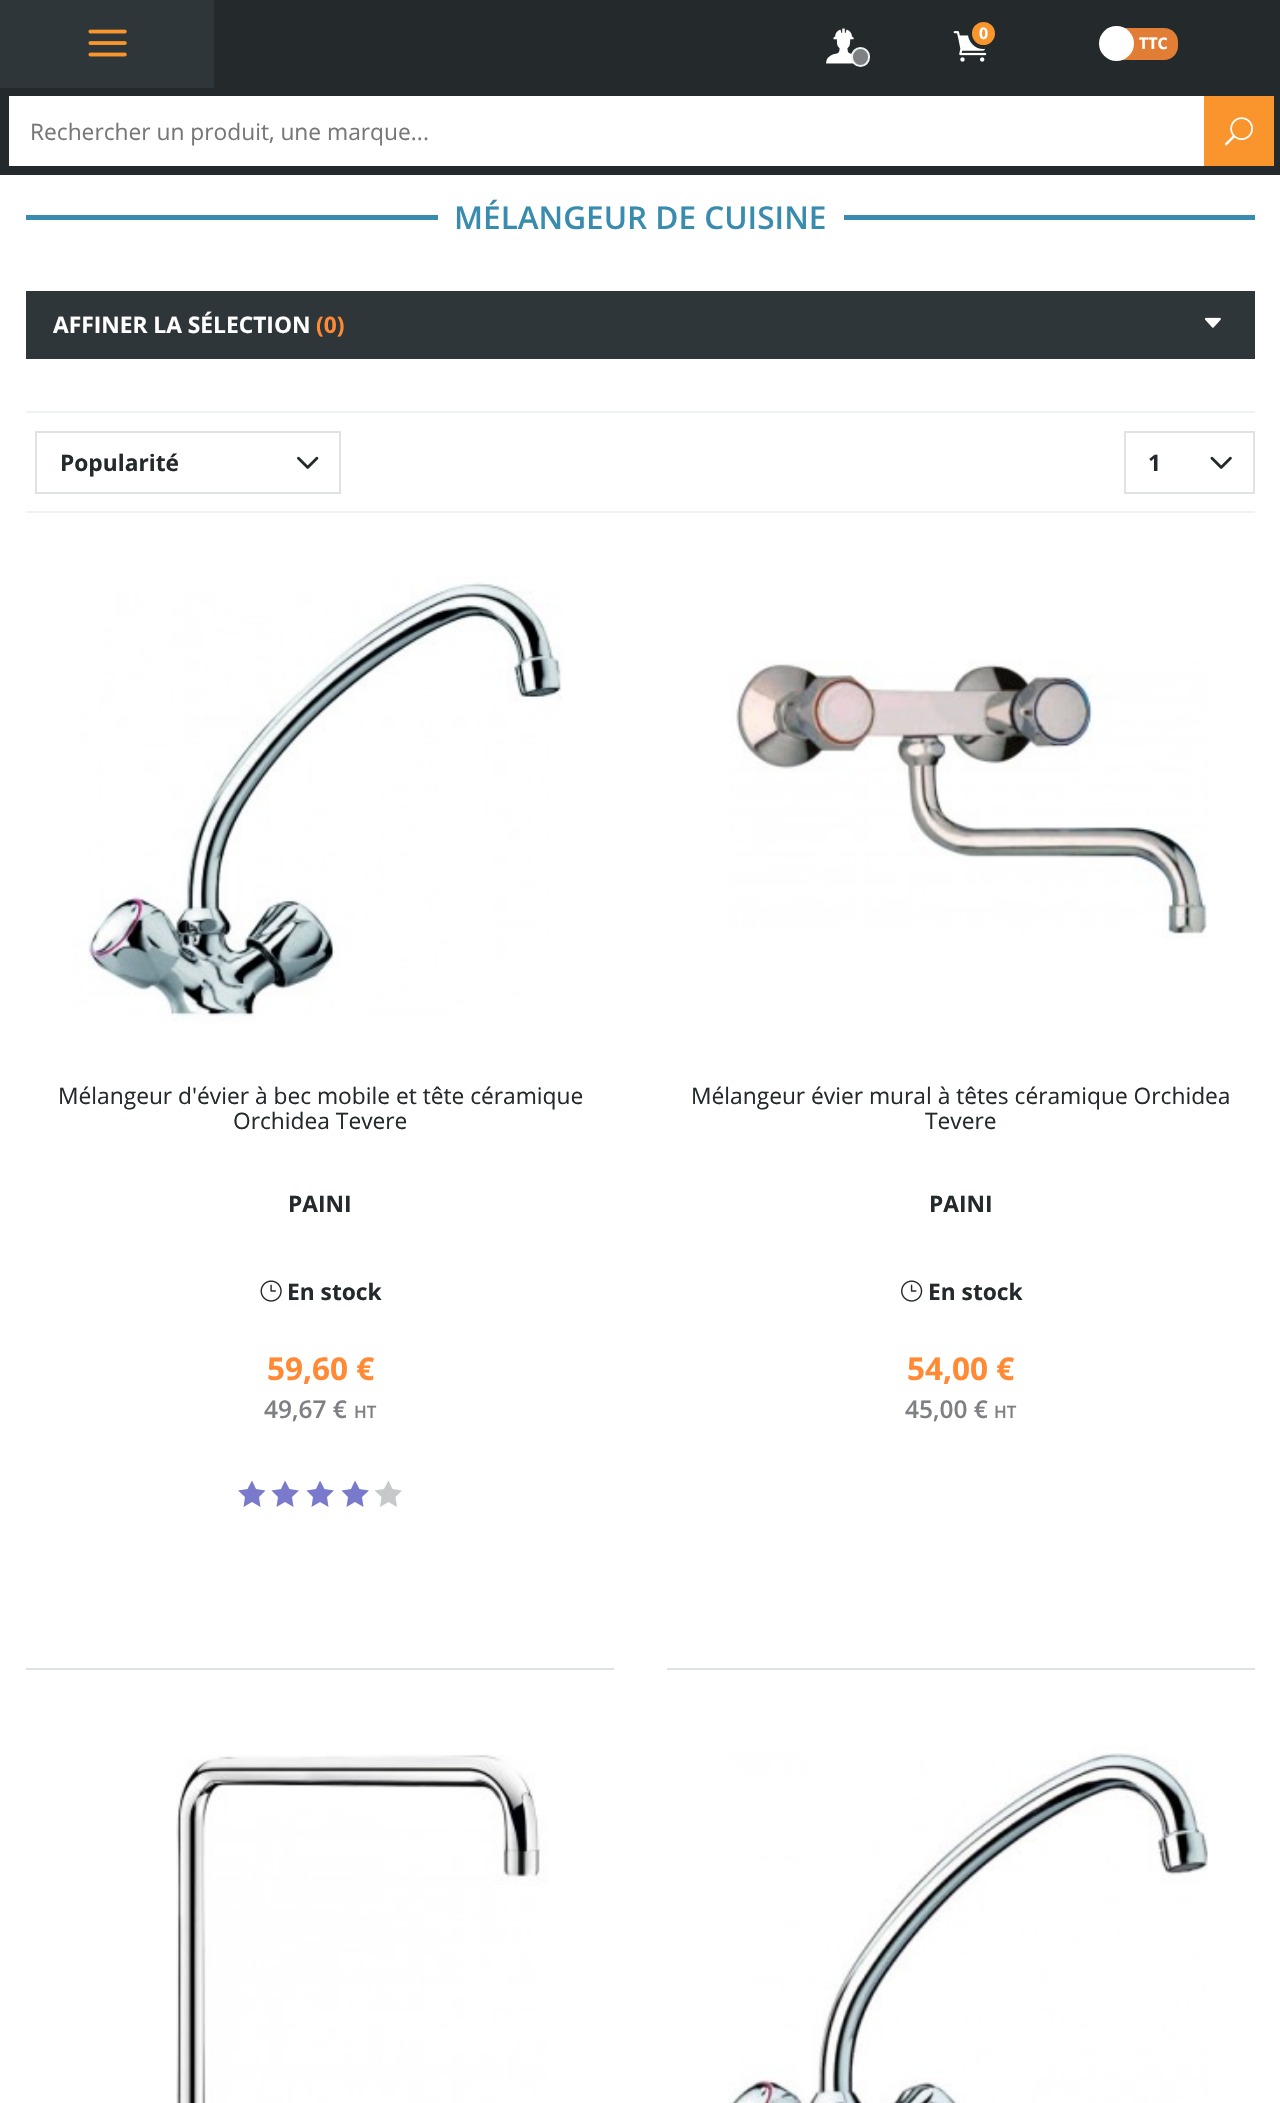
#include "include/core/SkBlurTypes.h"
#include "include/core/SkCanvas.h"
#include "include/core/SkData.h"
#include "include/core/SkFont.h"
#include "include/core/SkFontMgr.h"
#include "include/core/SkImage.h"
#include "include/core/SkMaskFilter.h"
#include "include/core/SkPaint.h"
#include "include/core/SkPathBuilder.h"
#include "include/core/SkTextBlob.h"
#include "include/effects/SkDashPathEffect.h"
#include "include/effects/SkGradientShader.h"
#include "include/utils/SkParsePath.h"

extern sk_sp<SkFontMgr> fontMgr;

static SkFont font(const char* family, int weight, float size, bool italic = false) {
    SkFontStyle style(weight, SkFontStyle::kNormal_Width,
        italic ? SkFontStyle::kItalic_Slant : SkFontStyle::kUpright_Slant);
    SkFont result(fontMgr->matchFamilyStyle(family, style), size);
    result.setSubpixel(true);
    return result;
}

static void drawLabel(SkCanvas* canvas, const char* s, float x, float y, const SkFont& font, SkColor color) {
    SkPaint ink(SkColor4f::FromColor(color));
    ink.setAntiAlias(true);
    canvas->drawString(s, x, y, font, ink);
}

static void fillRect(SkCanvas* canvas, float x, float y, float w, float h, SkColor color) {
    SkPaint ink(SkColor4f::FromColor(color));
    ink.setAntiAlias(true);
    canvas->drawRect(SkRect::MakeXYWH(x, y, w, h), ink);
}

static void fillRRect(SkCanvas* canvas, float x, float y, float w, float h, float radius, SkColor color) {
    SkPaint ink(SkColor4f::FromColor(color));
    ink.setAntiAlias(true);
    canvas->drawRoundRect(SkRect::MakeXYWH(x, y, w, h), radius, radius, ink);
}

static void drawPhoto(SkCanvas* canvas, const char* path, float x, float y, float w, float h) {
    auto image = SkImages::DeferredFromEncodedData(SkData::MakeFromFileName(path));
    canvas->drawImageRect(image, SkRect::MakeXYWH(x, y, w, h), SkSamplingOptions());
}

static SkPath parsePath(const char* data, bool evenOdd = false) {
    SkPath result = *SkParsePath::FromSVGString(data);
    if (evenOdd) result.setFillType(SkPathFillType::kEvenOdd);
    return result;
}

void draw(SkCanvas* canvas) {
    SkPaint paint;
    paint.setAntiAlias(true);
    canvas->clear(0xFFFFFFFF);
    fillRect(canvas, 214, 0, 1066, 88, 0xFF242A2C);
    fillRect(canvas, 0, 0, 214, 88, 0xFF2E3639);
    drawPhoto(canvas, "assets/img1.png", 88, 29, 39, 28);
    drawPhoto(canvas, "assets/img2.png", 826, 28, 28, 36);
    paint.setColor(0xFF7E8083);
    canvas->drawRoundRect(SkRect::MakeXYWH(852, 48, 17, 18), 8.5f, 8.5f, paint);
    paint.setStroke(true);
    paint.setStrokeWidth(2);
    paint.setColor(0xFFEEF2F2);
    canvas->drawRoundRect(SkRect::MakeXYWH(852, 48, 17, 18), 8.5f, 8.5f, paint);
    drawPhoto(canvas, "assets/img3.png", 953, 31, 34, 31);
    paint.setStroke(false);
    paint.setColor(0xFFF9952C);
    canvas->drawCircle(983.5f, 33.5f, 13.5f, paint);
    paint.setStroke(true);
    paint.setStrokeWidth(4);
    paint.setColor(0xFF242A2C);
    canvas->drawCircle(983.5f, 33.5f, 13.5f, paint);
    SkFont font1 = font("Open Sans", 700, 16);
    drawLabel(canvas, "0", 979, 39, font1, 0xFFFFFFFF);
    fillRRect(canvas, 1108, 28, 70, 32, 14, 0xFFE17D35);
    paint.setStroke(false);
    paint.setColor(0xFFFFFFFF);
    canvas->drawCircle(1116.5f, 43.5f, 17.5f, paint);
    drawLabel(canvas, "TTC", 1139, 49, font1, 0xFFFFFFFF);
    fillRect(canvas, 0, 88, 1280, 87, 0xFF242A2C);
    fillRect(canvas, 9, 96, 1195, 70, 0xFFFFFFFF);
    fillRect(canvas, 1204, 96, 70, 70, 0xFFF9952C);
    drawPhoto(canvas, "assets/img4.png", 1224, 117, 29, 29);
    SkFont font2 = font("Open Sans", 400, 22.75f);
    drawLabel(canvas, "Rechercher un produit, une marque...", 30, 140, font2, 0xFF777777);
    fillRect(canvas, 26, 215, 1229, 5, 0xFF3A8CAE);
    fillRect(canvas, 438, 215, 406, 5, 0xFFFFFFFF);
    SkFont font3 = font("Open Sans", 600, 31.5f);
    drawLabel(canvas, "MÉLANGEUR DE CUISINE", 454, 229, font3, 0xFF3A8CAE);
    fillRect(canvas, 26, 291, 1229, 68, 0xFF2E3639);
    SkFont font4 = font("Open Sans", 700, 22.75f);
    drawLabel(canvas, "AFFINER LA SÉLECTION", 53, 333, font4, 0xFFFFFFFF);
    drawLabel(canvas, "(0)", 316, 333, font4, 0xFFFF8A36);
    drawPhoto(canvas, "assets/img5.png", 1205, 317, 16, 11);
    fillRect(canvas, 26, 411, 1229, 2, 0xFFEEF2F2);
    fillRect(canvas, 26, 511, 1229, 2, 0xFFEEF2F2);
    paint.setStroke(true);
    paint.setStrokeWidth(2);
    paint.setColor(0xFFE0E3E3);
    canvas->drawRect(SkRect::MakeXYWH(36, 432, 304, 61), paint);
    drawLabel(canvas, "Popularité", 60, 471, font4, 0xFF242A2C);
    drawPhoto(canvas, "assets/img6.png", 297, 456, 22, 13);
    canvas->drawRect(SkRect::MakeXYWH(1125, 432, 129, 61), paint);
    drawLabel(canvas, "1", 1148, 471, font4, 0xFF242A2C);
    drawPhoto(canvas, "assets/img7.png", 1210, 456, 22, 13);
    fillRect(canvas, 26, 1668, 588, 2, 0xFFE0E3E3);
    drawPhoto(canvas, "assets/img8.png", 74, 576, 489, 447);
    drawLabel(canvas, "Mélangeur d'évier à bec mobile et tête céramique", 58, 1104, font2, 0xFF242A2C);
    drawLabel(canvas, "Orchidea Tevere", 233, 1129, font2, 0xFF242A2C);
    drawLabel(canvas, "PAINI", 288, 1212, font4, 0xFF242A2C);
    drawPhoto(canvas, "assets/img9.png", 260, 1280, 22, 22);
    drawLabel(canvas, "En stock", 287, 1300, font4, 0xFF242A2C);
    SkFont font5 = font("Open Sans", 700, 31.5f);
    drawLabel(canvas, "59,60 €", 267, 1380, font5, 0xFFFF8A36);
    SkFont font6 = font("Open Sans", 600, 24.5f);
    drawLabel(canvas, "49,67 €", 264, 1418, font6, 0xFF7E8083);
    SkFont font7 = font("Open Sans", 600, 17);
    drawLabel(canvas, "HT", 354, 1418, font7, 0xFF7E8083);
    paint.setStroke(false);
    paint.setColor(0xFF7A7ACC);
    canvas->drawPath(parsePath("M256 1489L265.5 1490.5L259 1497L260.5 1507L252 1502L243.5 1507L245 1497L238 1490.5L247.5 1489L252 1480.5ZM289.5 1489L299 1490.5L292 1497L293.5 1507L285 1502L276.5 1507L278 1497L271.5 1490.5L281 1489L285 1480.5Z"), paint);
    canvas->drawPath(parsePath("M324.5 1489L334 1490.5L327 1497L328.5 1507L320 1502L311.5 1507L313 1497L306.5 1490.5L316 1489L320 1480.5ZM359.5 1489L369 1490.5L362 1497L363.5 1507L355 1502L346.5 1507L348 1497L341.5 1490.5L351 1489L355 1480.5Z"), paint);
    paint.setColor(0xFFC5C9CA);
    canvas->drawPath(parsePath("M392.5 1489L402 1490.5L395.5 1497L397 1507L388.5 1502L380 1507L381.5 1497L374.5 1490.5L384 1489L388.5 1480.5Z"), paint);
    fillRect(canvas, 667, 1668, 588, 2, 0xFFE0E3E3);
    drawPhoto(canvas, "assets/img10.png", 730, 660, 478, 279);
    drawLabel(canvas, "Mélangeur évier mural à têtes céramique Orchidea", 691, 1104, font2, 0xFF242A2C);
    drawLabel(canvas, "Tevere", 925, 1129, font2, 0xFF242A2C);
    drawLabel(canvas, "PAINI", 929, 1212, font4, 0xFF242A2C);
    drawPhoto(canvas, "assets/img11.png", 901, 1280, 22, 22);
    drawLabel(canvas, "En stock", 928, 1300, font4, 0xFF242A2C);
    drawLabel(canvas, "54,00 €", 907, 1380, font5, 0xFFFF8A36);
    drawLabel(canvas, "45,00 €", 905, 1418, font6, 0xFF7E8083);
    drawLabel(canvas, "HT", 994, 1418, font7, 0xFF7E8083);
    drawPhoto(canvas, "assets/img12.png", 176, 1754, 372, 349);
    drawPhoto(canvas, "assets/img13.png", 728, 1746, 480, 357);
}
